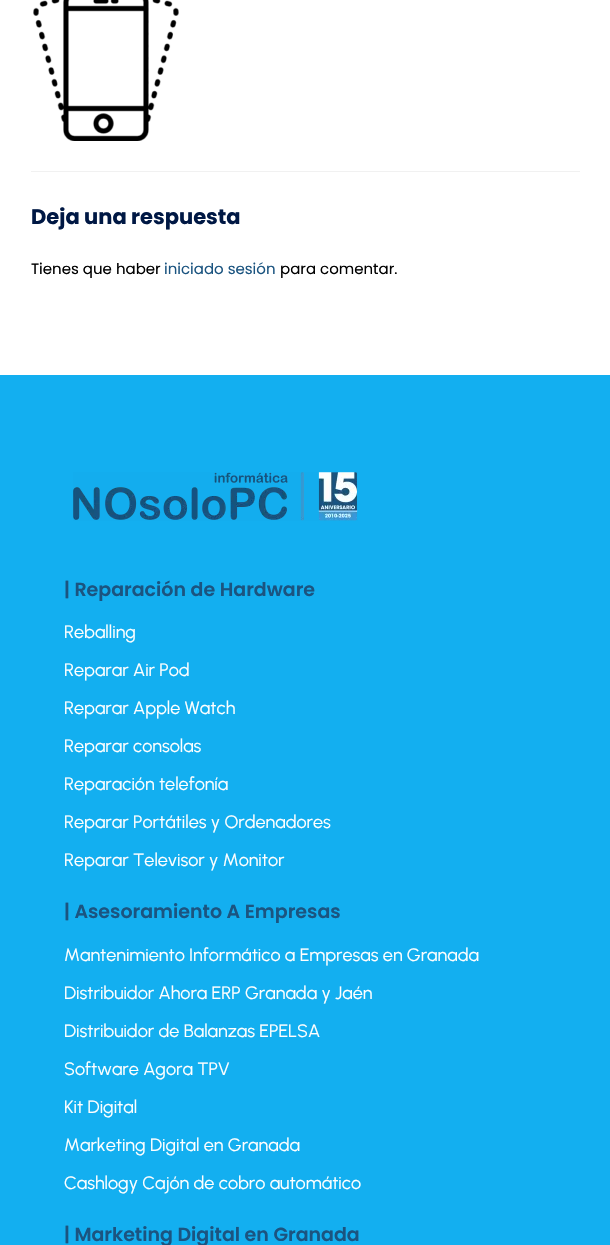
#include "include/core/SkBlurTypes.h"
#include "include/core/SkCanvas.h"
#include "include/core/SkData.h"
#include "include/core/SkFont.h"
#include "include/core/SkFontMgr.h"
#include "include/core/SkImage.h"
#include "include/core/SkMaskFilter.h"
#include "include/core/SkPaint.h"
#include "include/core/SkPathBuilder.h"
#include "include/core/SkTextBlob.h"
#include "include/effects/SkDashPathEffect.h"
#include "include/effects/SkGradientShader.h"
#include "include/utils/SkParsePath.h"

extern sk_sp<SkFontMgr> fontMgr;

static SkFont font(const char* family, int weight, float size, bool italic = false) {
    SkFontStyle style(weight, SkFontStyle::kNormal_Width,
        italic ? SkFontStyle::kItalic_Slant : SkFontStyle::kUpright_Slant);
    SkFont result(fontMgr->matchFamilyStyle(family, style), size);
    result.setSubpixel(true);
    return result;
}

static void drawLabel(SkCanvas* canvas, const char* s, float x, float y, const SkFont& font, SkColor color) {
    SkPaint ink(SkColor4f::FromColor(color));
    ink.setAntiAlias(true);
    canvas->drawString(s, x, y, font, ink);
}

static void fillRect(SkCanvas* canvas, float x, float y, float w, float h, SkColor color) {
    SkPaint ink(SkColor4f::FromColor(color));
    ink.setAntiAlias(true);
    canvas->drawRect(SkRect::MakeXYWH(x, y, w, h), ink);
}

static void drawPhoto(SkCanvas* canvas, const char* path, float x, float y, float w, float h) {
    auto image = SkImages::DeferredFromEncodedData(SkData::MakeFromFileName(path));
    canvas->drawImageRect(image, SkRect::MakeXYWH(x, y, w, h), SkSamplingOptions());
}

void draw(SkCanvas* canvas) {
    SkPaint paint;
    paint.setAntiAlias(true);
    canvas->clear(0xFFFFFFFF);
    drawPhoto(canvas, "assets/img1.png", 33, 0, 146, 141);
    fillRect(canvas, 31, 171, 549, 1, 0xFFF1F1F1);
    SkFont font1 = font("Poppins", 700, 21);
    drawLabel(canvas, "Deja una respuesta", 31, 224, font1, 0xFF001844);
    SkFont font2 = font("Poppins", 400, 15);
    drawLabel(canvas, "Tienes que haber", 31, 274, font2, 0xFF000000);
    drawLabel(canvas, "iniciado sesión", 164, 274, font2, 0xFF1B5480);
    drawLabel(canvas, "para comentar.", 280, 274, font2, 0xFF000000);
    fillRect(canvas, 0, 375, 610, 870, 0xFF13AFF0);
    drawPhoto(canvas, "assets/img2.png", 73, 472, 285, 49);
    SkFont font3 = font("Poppins", 600, 19);
    drawLabel(canvas, "| Reparación de Hardware", 64, 596, font3, 0xFF1B5480);
    SkFont font4 = font("Urbanist", 400, 18);
    drawLabel(canvas, "Reballing", 64, 638, font4, 0xFFFFFFFF);
    drawLabel(canvas, "Reparar Air Pod", 64, 676, font4, 0xFFFFFFFF);
    drawLabel(canvas, "Reparar Apple Watch", 64, 714, font4, 0xFFFFFFFF);
    drawLabel(canvas, "Reparar consolas", 64, 752, font4, 0xFFFFFFFF);
    drawLabel(canvas, "Reparación telefonía", 64, 790, font4, 0xFFFFFFFF);
    drawLabel(canvas, "Reparar Portátiles y Ordenadores", 64, 828, font4, 0xFFFFFFFF);
    drawLabel(canvas, "Reparar Televisor y Monitor", 64, 866, font4, 0xFFFFFFFF);
    drawLabel(canvas, "| Asesoramiento A Empresas", 64, 918, font3, 0xFF1B5480);
    drawLabel(canvas, "Mantenimiento Informático a Empresas en Granada", 64, 961, font4, 0xFFFFFFFF);
    drawLabel(canvas, "Distribuidor Ahora ERP Granada y Jaén", 64, 999, font4, 0xFFFFFFFF);
    drawLabel(canvas, "Distribuidor de Balanzas EPELSA", 64, 1037, font4, 0xFFFFFFFF);
    drawLabel(canvas, "Software Agora TPV", 64, 1075, font4, 0xFFFFFFFF);
    drawLabel(canvas, "Kit Digital", 64, 1113, font4, 0xFFFFFFFF);
    drawLabel(canvas, "Marketing Digital en Granada", 64, 1151, font4, 0xFFFFFFFF);
    drawLabel(canvas, "Cashlogy Cajón de cobro automático", 64, 1189, font4, 0xFFFFFFFF);
    drawLabel(canvas, "| Marketing Digital en Granada", 64, 1241, font3, 0xFF1B5480);
}
